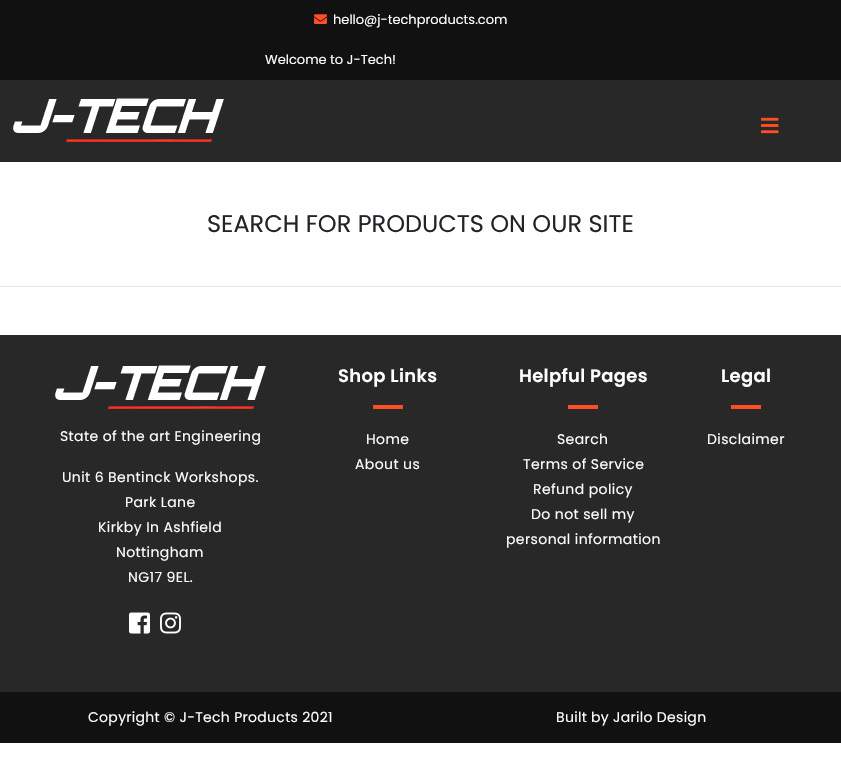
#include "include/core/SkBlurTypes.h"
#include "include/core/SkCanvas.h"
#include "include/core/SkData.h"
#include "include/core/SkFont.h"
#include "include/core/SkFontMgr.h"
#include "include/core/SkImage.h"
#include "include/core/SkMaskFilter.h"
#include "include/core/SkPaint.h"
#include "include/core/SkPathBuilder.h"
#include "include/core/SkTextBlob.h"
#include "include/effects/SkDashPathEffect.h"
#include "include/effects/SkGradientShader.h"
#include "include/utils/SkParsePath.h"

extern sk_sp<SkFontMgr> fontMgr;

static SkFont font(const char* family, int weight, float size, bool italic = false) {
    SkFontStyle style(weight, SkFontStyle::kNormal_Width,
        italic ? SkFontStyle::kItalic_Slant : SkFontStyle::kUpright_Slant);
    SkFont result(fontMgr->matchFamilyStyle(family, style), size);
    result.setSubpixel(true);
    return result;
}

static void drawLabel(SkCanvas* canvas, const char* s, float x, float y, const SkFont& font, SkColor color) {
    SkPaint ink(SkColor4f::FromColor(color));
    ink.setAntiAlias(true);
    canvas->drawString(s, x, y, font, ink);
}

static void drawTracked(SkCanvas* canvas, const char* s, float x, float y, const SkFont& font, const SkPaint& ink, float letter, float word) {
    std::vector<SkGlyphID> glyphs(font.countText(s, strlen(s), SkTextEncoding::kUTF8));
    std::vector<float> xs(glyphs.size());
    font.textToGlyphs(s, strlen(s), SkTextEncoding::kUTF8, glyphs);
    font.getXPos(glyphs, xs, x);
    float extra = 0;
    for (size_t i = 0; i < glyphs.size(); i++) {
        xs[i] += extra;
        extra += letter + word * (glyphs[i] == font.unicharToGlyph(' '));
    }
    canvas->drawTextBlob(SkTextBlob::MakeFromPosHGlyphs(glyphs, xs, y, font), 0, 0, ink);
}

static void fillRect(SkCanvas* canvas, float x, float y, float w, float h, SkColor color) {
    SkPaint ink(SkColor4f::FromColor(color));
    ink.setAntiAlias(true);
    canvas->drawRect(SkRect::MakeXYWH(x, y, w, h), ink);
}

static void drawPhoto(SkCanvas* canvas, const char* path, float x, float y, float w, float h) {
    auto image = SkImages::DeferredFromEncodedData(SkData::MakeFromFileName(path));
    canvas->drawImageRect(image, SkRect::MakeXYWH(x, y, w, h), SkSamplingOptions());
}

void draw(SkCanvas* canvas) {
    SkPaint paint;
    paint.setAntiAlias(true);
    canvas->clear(0xFFFFFFFF);
    fillRect(canvas, 0, 0, 841, 80, 0xFF111111);
    drawPhoto(canvas, "assets/img1.png", 314, 14, 13, 10);
    SkFont font1 = font("Poppins", 400, 13);
    drawLabel(canvas, "hello@j-techproducts.com", 333, 24, font1, 0xFFFFFFFF);
    drawLabel(canvas, "Welcome to J-Tech!", 265, 64, font1, 0xFFFFFFFF);
    fillRect(canvas, 0, 80, 841, 82, 0xFF282828);
    drawPhoto(canvas, "assets/img2.png", 13, 98, 211, 44);
    drawPhoto(canvas, "assets/img3.png", 761, 117, 18, 17);
    SkFont font2 = font("Poppins", 400, 24);
    drawLabel(canvas, "SEARCH FOR PRODUCTS ON OUR SITE", 207, 232, font2, 0xFF212529);
    fillRect(canvas, 0, 286, 841, 1, 0xFFE6E6E6);
    fillRect(canvas, 0, 335, 841, 357, 0xFF282828);
    SkFont font3 = font("Poppins", 600, 18);
    paint.setColor(0xFFFFFFFF);
    drawTracked(canvas, "Shop Links", 338, 382, font3, paint, 0.3f, 0);
    fillRect(canvas, 373, 405, 30, 4, 0xFFFF4E25);
    SkFont font4 = font("Poppins", 400, 14);
    drawTracked(canvas, "Home", 366, 444, font4, paint, 0.4f, 0);
    drawTracked(canvas, "About us", 355, 469, font4, paint, 0.4f, 0);
    drawTracked(canvas, "Helpful Pages", 519, 382, font3, paint, 0.3f, 0);
    fillRect(canvas, 568, 405, 30, 4, 0xFFFF4E25);
    drawTracked(canvas, "Search", 557, 444, font4, paint, 0.4f, 0);
    drawTracked(canvas, "Terms of Service", 523, 469, font4, paint, 0.4f, 0);
    drawTracked(canvas, "Refund policy", 533, 494, font4, paint, 0.4f, 0);
    drawTracked(canvas, "Do not sell my", 531, 519, font4, paint, 0.4f, 0);
    drawTracked(canvas, "personal information", 506, 544, font4, paint, 0.4f, 0);
    drawTracked(canvas, "Legal", 721, 382, font3, paint, 0.3f, 0);
    fillRect(canvas, 731, 405, 30, 4, 0xFFFF4E25);
    drawTracked(canvas, "Disclaimer", 707, 444, font4, paint, 0.4f, 0);
    drawPhoto(canvas, "assets/img2.png", 55, 365, 211, 44);
    drawTracked(canvas, "State of the art Engineering", 60, 441, font4, paint, 0.4f, 0);
    drawTracked(canvas, "Unit 6 Bentinck Workshops.", 62, 482, font4, paint, 0.4f, 0);
    drawTracked(canvas, "Park Lane", 125, 507, font4, paint, 0.4f, 0);
    drawTracked(canvas, "Kirkby In Ashfield", 98, 532, font4, paint, 0.4f, 0);
    drawTracked(canvas, "Nottingham", 116, 557, font4, paint, 0.4f, 0);
    drawTracked(canvas, "NG17 9EL.", 128, 582, font4, paint, 0.4f, 0);
    drawPhoto(canvas, "assets/img4.png", 129, 612, 21, 22);
    drawPhoto(canvas, "assets/img5.png", 160, 612, 21, 22);
    fillRect(canvas, 0, 692, 841, 51, 0xFF111111);
    drawTracked(canvas, "Copyright © J-Tech Products 2021", 88, 722, font4, paint, 0.3f, 0);
    drawTracked(canvas, "Built by Jarilo Design", 556, 722, font4, paint, 0.3f, 0);
}
